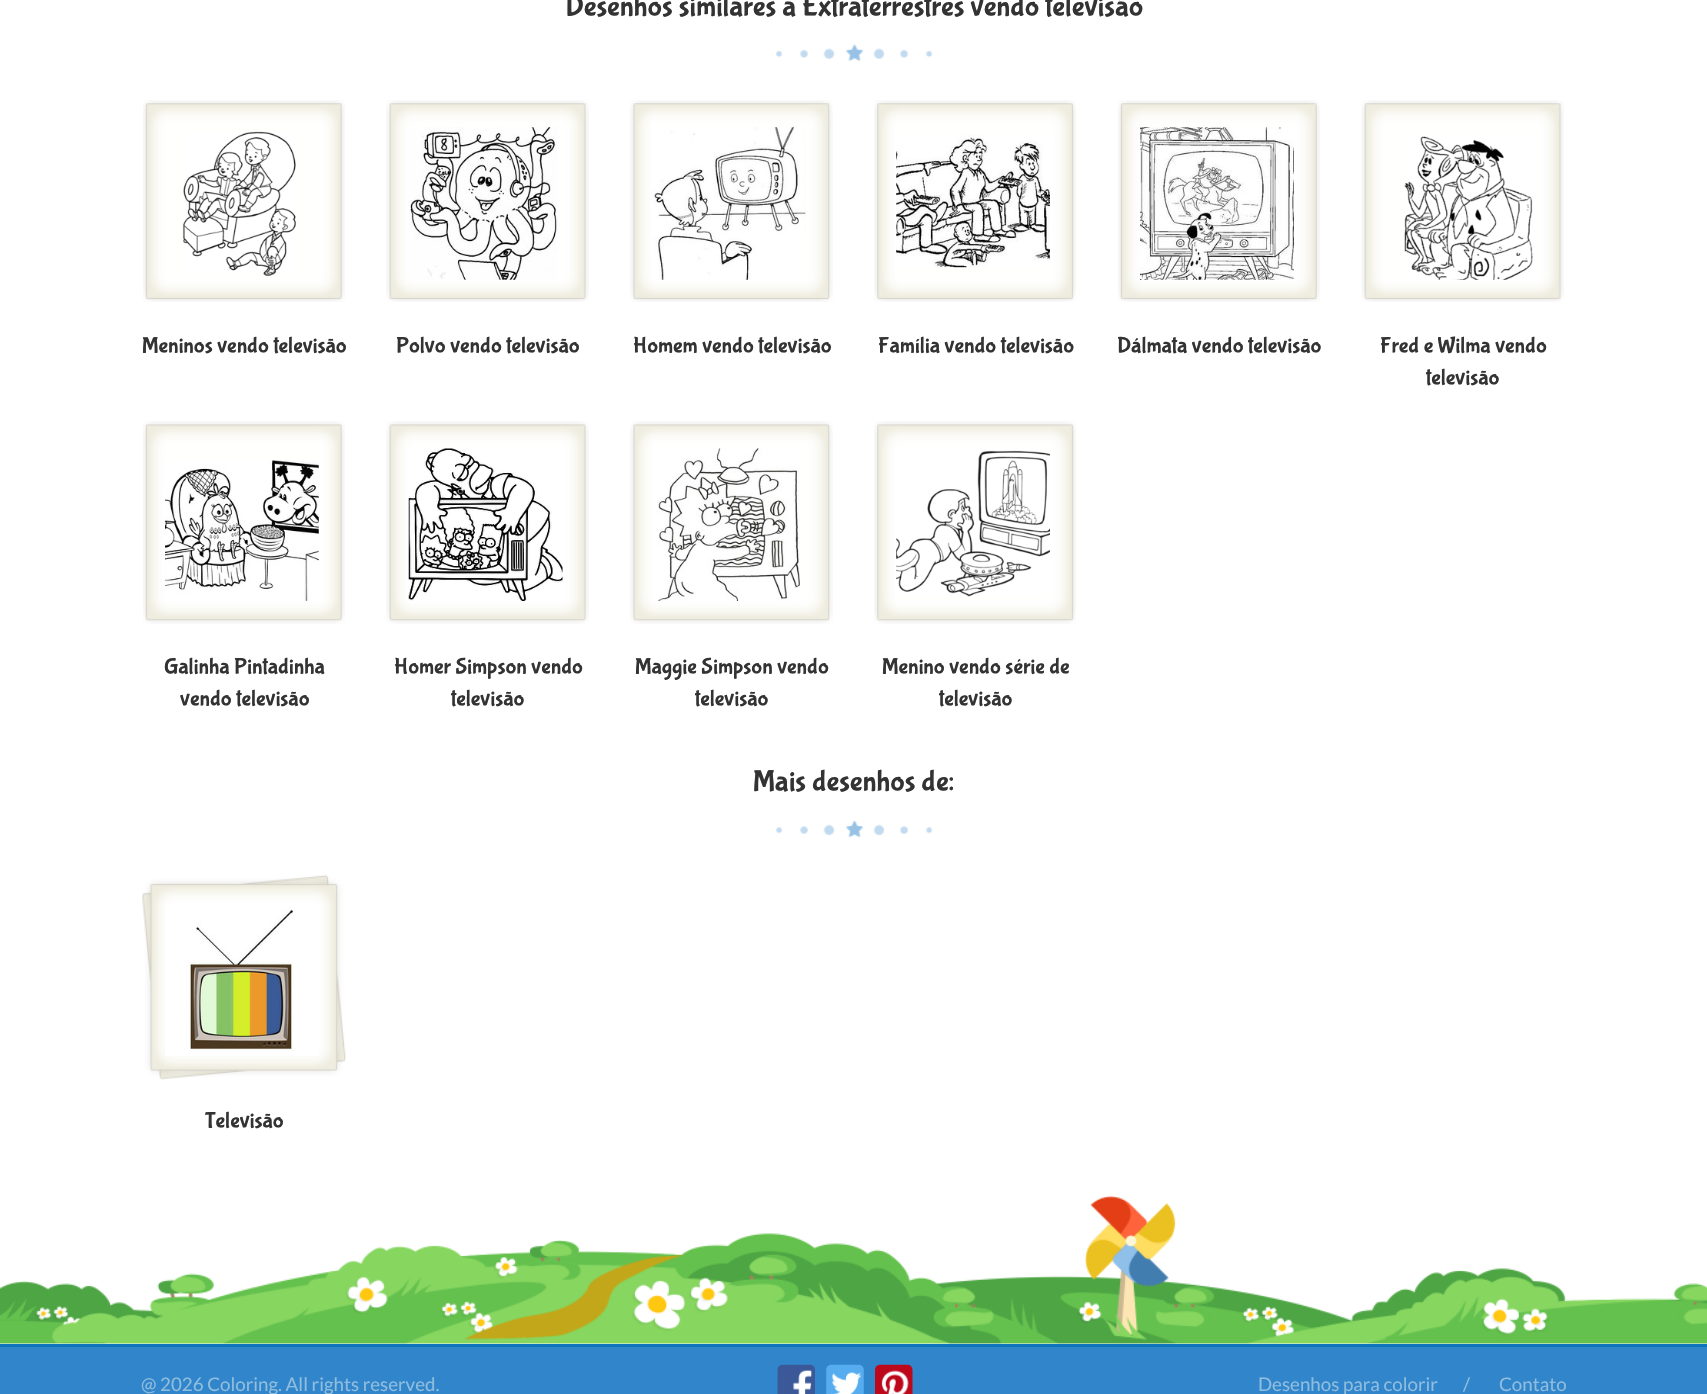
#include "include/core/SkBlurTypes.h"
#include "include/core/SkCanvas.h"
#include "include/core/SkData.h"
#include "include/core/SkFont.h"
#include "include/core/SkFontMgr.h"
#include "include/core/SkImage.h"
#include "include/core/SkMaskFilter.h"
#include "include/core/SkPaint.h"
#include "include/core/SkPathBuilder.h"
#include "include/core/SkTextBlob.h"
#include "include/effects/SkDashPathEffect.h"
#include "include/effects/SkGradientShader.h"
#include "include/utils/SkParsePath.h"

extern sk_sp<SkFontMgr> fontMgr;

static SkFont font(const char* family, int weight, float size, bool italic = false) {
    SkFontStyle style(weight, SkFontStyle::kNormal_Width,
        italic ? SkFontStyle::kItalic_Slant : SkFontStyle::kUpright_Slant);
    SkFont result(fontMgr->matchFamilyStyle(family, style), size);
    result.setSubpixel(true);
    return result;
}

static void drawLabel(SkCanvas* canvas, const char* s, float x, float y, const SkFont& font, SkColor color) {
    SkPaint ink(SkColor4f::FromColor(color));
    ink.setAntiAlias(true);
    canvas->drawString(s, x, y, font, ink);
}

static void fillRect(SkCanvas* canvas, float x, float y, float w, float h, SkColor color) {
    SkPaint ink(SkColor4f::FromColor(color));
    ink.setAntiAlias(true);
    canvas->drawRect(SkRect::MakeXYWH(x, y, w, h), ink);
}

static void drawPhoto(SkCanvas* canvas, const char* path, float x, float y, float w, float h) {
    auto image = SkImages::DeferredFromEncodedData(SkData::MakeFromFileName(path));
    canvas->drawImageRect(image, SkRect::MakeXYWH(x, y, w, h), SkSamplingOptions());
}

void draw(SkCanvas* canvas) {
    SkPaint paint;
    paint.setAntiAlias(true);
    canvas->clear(0xFFFFFFFF);
    drawPhoto(canvas, "assets/img1.png", 776, 44, 157, 17);
    SkFont font1 = font("Bubblegum Sans", 400, 30);
    drawLabel(canvas, "Desenhos similares a Extraterrestres vendo televisão", 565, 15, font1, 0xFF333333);
    drawPhoto(canvas, "assets/img2.png", 143, 100, 202, 202);
    drawPhoto(canvas, "assets/img3.png", 182, 131, 115, 145);
    SkFont font2 = font("Bubblegum Sans", 400, 22.5f);
    drawLabel(canvas, "Meninos vendo televisão", 142, 352, font2, 0xFF333333);
    drawPhoto(canvas, "assets/img4.png", 386, 100, 203, 202);
    drawPhoto(canvas, "assets/img5.png", 409, 127, 149, 153);
    drawLabel(canvas, "Polvo vendo televisão", 396, 352, font2, 0xFF333333);
    drawPhoto(canvas, "assets/img6.png", 630, 100, 203, 202);
    drawPhoto(canvas, "assets/img7.png", 652, 127, 154, 153);
    drawLabel(canvas, "Homem vendo televisão", 633, 352, font2, 0xFF333333);
    drawPhoto(canvas, "assets/img8.png", 874, 100, 202, 202);
    drawPhoto(canvas, "assets/img9.png", 896, 134, 154, 134);
    drawLabel(canvas, "Família vendo televisão", 878, 352, font2, 0xFF333333);
    drawPhoto(canvas, "assets/img2.png", 1118, 100, 202, 202);
    drawPhoto(canvas, "assets/img10.png", 1140, 127, 154, 153);
    drawLabel(canvas, "Dálmata vendo televisão", 1117, 352, font2, 0xFF333333);
    drawPhoto(canvas, "assets/img4.png", 1361, 100, 203, 202);
    drawPhoto(canvas, "assets/img11.png", 1404, 136, 129, 144);
    drawLabel(canvas, "Fred e Wilma vendo", 1380, 352, font2, 0xFF333333);
    drawLabel(canvas, "televisão", 1426, 384, font2, 0xFF333333);
    drawPhoto(canvas, "assets/img12.png", 143, 421, 202, 203);
    drawPhoto(canvas, "assets/img13.png", 165, 460, 154, 141);
    drawLabel(canvas, "Galinha Pintadinha", 164, 673, font2, 0xFF333333);
    drawLabel(canvas, "vendo televisão", 180, 705, font2, 0xFF333333);
    drawPhoto(canvas, "assets/img14.png", 386, 421, 203, 203);
    drawPhoto(canvas, "assets/img15.png", 408, 448, 155, 153);
    drawLabel(canvas, "Homer Simpson vendo", 394, 673, font2, 0xFF333333);
    drawLabel(canvas, "televisão", 451, 705, font2, 0xFF333333);
    drawPhoto(canvas, "assets/img16.png", 630, 421, 203, 203);
    drawPhoto(canvas, "assets/img17.png", 656, 448, 144, 153);
    drawLabel(canvas, "Maggie Simpson vendo", 635, 673, font2, 0xFF333333);
    drawLabel(canvas, "televisão", 695, 705, font2, 0xFF333333);
    drawPhoto(canvas, "assets/img18.png", 874, 421, 202, 203);
    drawPhoto(canvas, "assets/img19.png", 896, 450, 154, 147);
    drawLabel(canvas, "Menino vendo série de", 882, 673, font2, 0xFF333333);
    drawLabel(canvas, "televisão", 939, 705, font2, 0xFF333333);
    drawPhoto(canvas, "assets/img20.png", 776, 821, 157, 17);
    drawLabel(canvas, "Mais desenhos de:", 753, 790, font1, 0xFF333333);
    drawPhoto(canvas, "assets/img21.png", 142, 874, 204, 206);
    drawPhoto(canvas, "assets/img22.png", 165, 904, 154, 152);
    drawLabel(canvas, "Televisão", 205, 1127, font2, 0xFF333333);
    drawPhoto(canvas, "assets/img23.png", 0, 1196, 1707, 148);
    fillRect(canvas, 0, 1347, 1707, 47, 0xFF3185CB);
    fillRect(canvas, 0, 1344, 1707, 3, 0xFF0F75BC);
    SkFont font3 = font("Lato", 400, 18.75f);
    drawLabel(canvas, "@ 2026 Coloring. All rights reserved.", 141, 1391, font3, 0xFF8FBDDE);
    drawPhoto(canvas, "assets/img24.png", 777, 1364, 38, 30);
    drawPhoto(canvas, "assets/img25.png", 826, 1364, 38, 30);
    drawPhoto(canvas, "assets/img26.png", 875, 1364, 38, 30);
    drawLabel(canvas, "Desenhos para colorir", 1258, 1391, font3, 0xFF8FBDDE);
    drawLabel(canvas, "/", 1463, 1391, font3, 0xFF8FBDDE);
    drawLabel(canvas, "Contato", 1499, 1391, font3, 0xFF8FBDDE);
}
